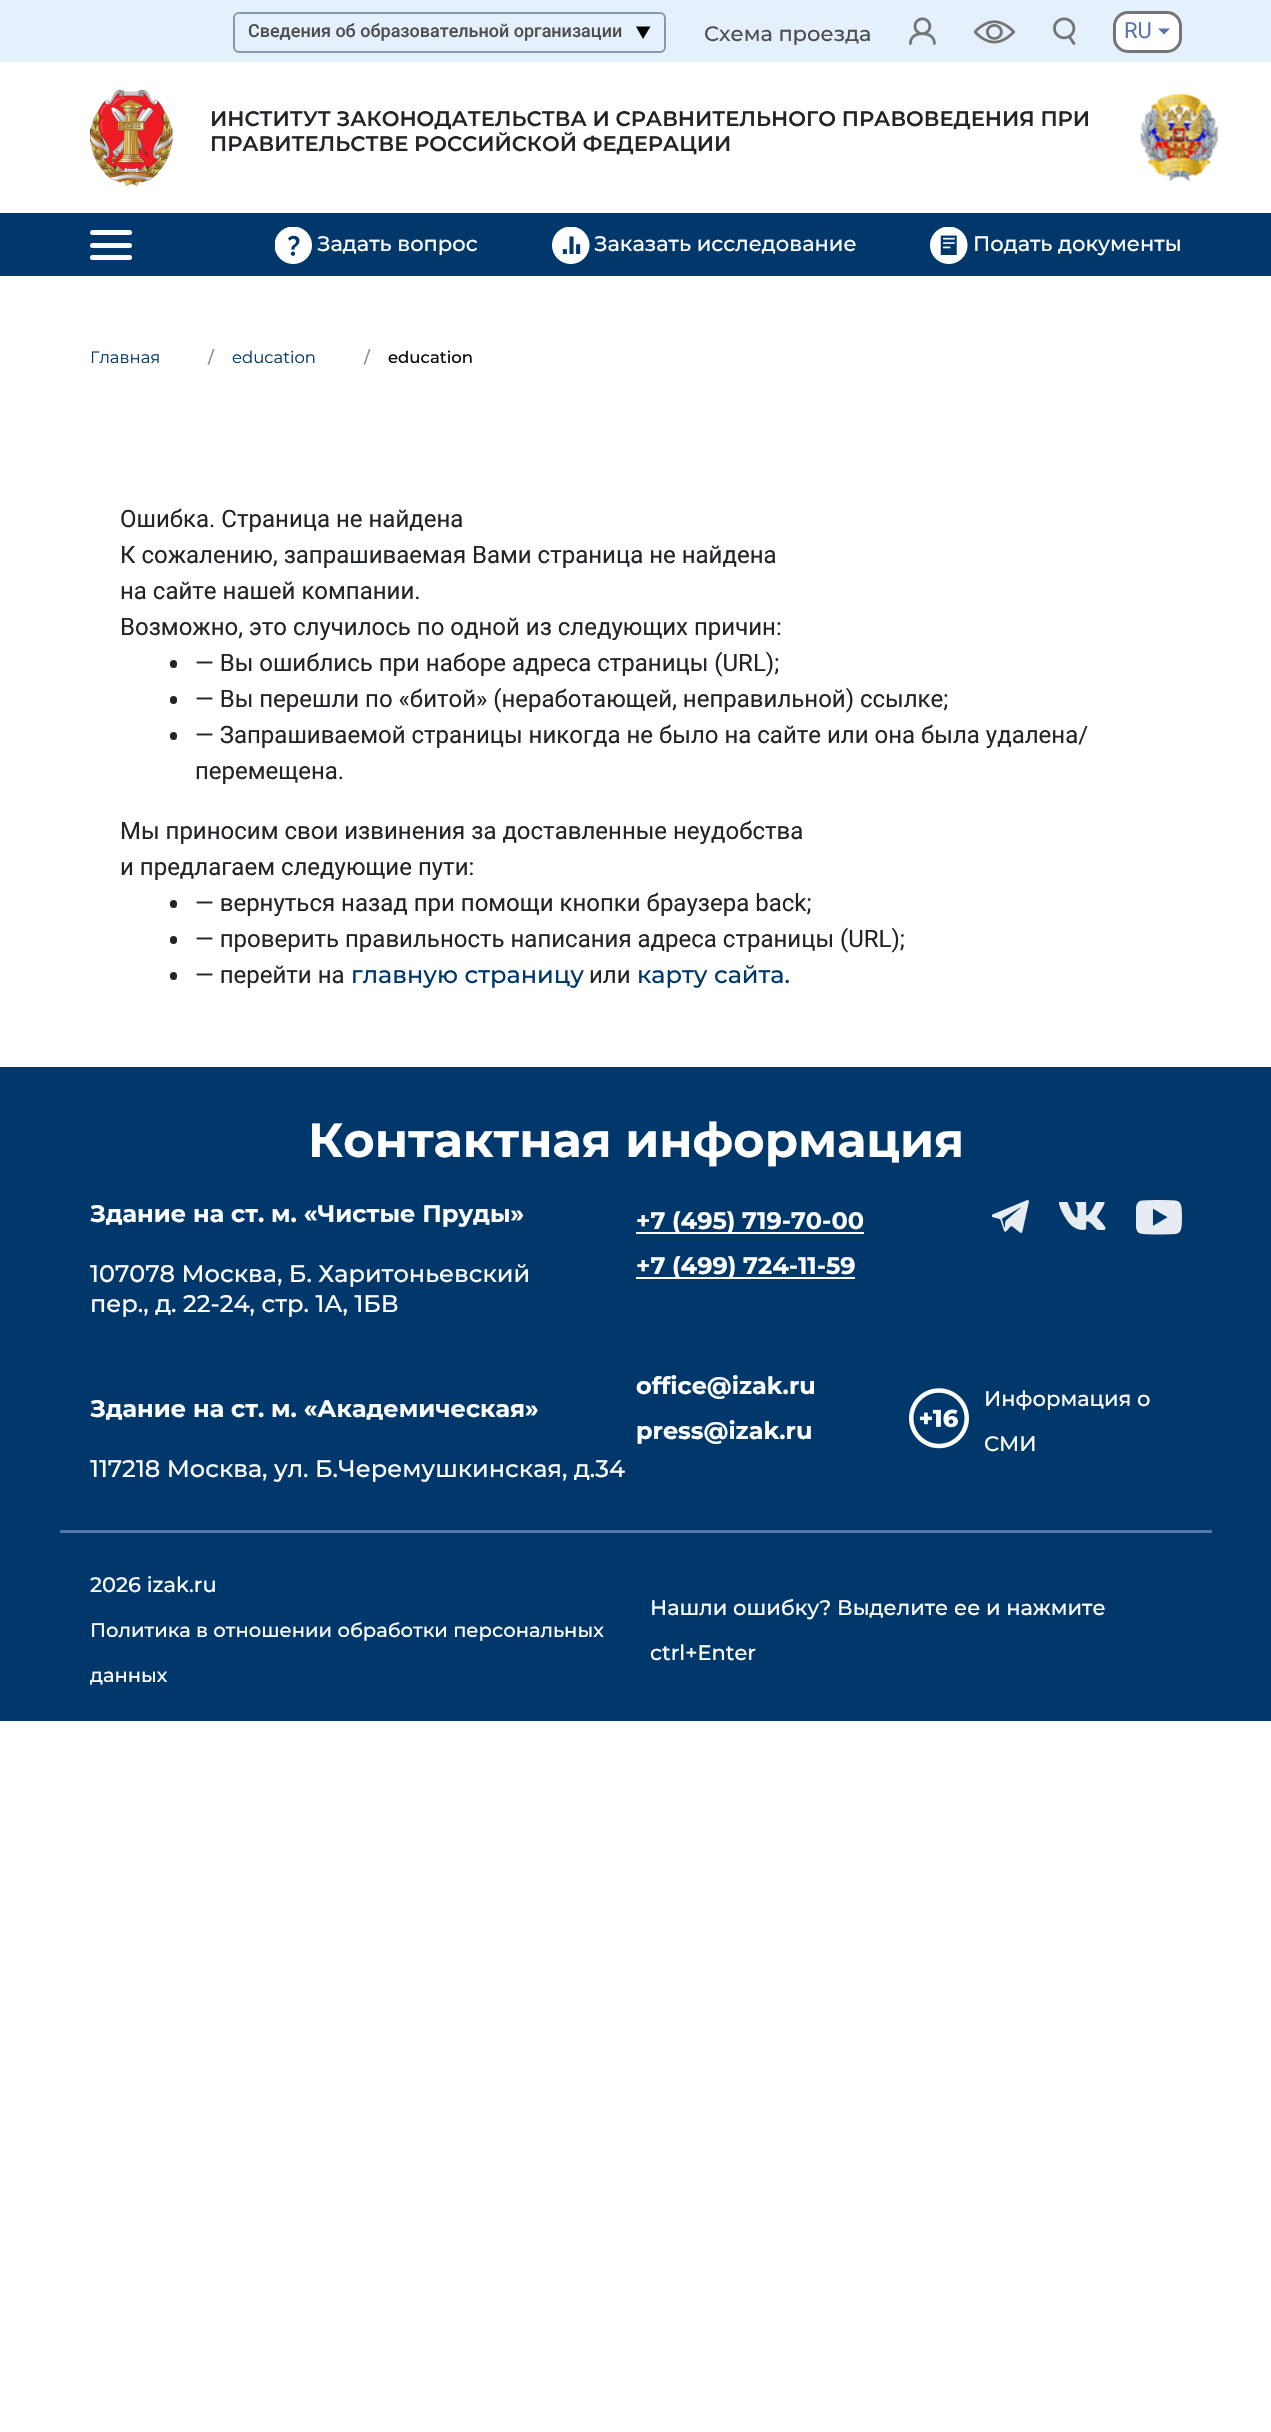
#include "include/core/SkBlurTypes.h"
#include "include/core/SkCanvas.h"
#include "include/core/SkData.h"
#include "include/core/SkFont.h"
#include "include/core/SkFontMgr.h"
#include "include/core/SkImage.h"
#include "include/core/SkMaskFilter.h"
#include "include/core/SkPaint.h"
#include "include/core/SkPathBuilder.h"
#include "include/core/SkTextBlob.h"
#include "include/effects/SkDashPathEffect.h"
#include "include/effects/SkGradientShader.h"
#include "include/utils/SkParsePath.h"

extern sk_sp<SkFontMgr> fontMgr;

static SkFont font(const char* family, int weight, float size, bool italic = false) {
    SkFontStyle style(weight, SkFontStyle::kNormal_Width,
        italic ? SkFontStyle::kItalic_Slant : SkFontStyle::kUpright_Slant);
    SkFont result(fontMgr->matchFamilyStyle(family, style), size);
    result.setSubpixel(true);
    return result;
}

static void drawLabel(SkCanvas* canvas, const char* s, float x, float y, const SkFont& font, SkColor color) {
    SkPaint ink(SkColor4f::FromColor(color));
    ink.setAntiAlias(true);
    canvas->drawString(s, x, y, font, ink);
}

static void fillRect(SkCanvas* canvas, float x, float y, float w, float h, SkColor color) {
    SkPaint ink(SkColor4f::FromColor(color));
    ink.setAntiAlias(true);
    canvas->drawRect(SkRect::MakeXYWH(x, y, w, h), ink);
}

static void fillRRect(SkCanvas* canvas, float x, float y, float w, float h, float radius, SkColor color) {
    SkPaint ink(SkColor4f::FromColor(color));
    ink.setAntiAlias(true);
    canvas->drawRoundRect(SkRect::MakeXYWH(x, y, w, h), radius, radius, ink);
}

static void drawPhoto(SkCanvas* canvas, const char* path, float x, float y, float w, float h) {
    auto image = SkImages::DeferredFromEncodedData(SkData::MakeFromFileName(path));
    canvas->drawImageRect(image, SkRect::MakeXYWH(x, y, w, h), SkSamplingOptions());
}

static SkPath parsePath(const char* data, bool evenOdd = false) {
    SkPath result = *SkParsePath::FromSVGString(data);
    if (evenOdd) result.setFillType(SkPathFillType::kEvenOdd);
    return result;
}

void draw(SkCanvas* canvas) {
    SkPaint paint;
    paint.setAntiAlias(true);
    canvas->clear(0xFFFFFFFF);
    fillRect(canvas, 0, 0, 1271, 62, 0xFFE4F0FC);
    paint.setStroke(true);
    paint.setStrokeWidth(2);
    paint.setColor(0xFF8A99AA);
    canvas->drawRoundRect(SkRect::MakeXYWH(234, 13, 431, 39), 5, 5, paint);
    SkFont font1 = font("Roboto", 500, 18);
    drawLabel(canvas, "Сведения об образовательной организации", 248, 37, font1, 0xFF4E4E4E);
    paint.setStroke(false);
    paint.setColor(0xFF000000);
    canvas->drawPath(parsePath("M643 39L650.5 26.5H636Z", true), paint);
    SkFont font2 = font("Montserrat", 500, 21);
    drawLabel(canvas, "Схема проезда", 704, 41, font2, 0xFF4E4E4E);
    drawPhoto(canvas, "assets/img1.png", 909, 17, 27, 28);
    drawPhoto(canvas, "assets/img2.png", 974, 20, 42, 24);
    drawPhoto(canvas, "assets/img3.png", 1053, 17, 23, 28);
    paint.setColor(0xFFFFFFFF);
    canvas->drawRoundRect(SkRect::MakeXYWH(1114.5f, 12.5f, 66, 39), 13.5f, 13.5f, paint);
    paint.setStroke(true);
    paint.setStrokeWidth(3);
    paint.setColor(0xFF757575);
    canvas->drawRoundRect(SkRect::MakeXYWH(1114.5f, 12.5f, 66, 39), 13.5f, 13.5f, paint);
    SkFont font3 = font("Roboto", 400, 22);
    drawLabel(canvas, "RU", 1124, 38, font3, 0xFF5578AC);
    paint.setStroke(false);
    paint.setColor(0xFF5578AC);
    canvas->drawPath(parsePath("M1158 28.5H1170L1164 34.5Z"), paint);
    drawPhoto(canvas, "assets/img4.png", 90, 90, 83, 96);
    SkFont font4 = font("Montserrat", 600, 21);
    drawLabel(canvas, "ИНСТИТУТ ЗАКОНОДАТЕЛЬСТВА И СРАВНИТЕЛЬНОГО ПРАВОВЕДЕНИЯ ПРИ", 210, 126, font4, 0xFF212529);
    drawLabel(canvas, "ПРАВИТЕЛЬСТВЕ РОССИЙСКОЙ ФЕДЕРАЦИИ", 210, 151, font4, 0xFF212529);
    drawPhoto(canvas, "assets/img5.png", 1140, 93, 79, 89);
    fillRect(canvas, 0, 213, 1271, 63, 0xFF00386C);
    fillRRect(canvas, 90, 230, 42, 5, 2.5f, 0xFFFFFFFF);
    fillRRect(canvas, 90, 243, 42, 5, 2.5f, 0xFFFFFFFF);
    fillRRect(canvas, 90, 255, 42, 5, 2.5f, 0xFFFFFFFF);
    drawPhoto(canvas, "assets/img6.png", 275, 227, 37, 37);
    drawLabel(canvas, "Задать вопрос", 317, 251, font2, 0xFFFFFFFF);
    drawPhoto(canvas, "assets/img7.png", 552, 227, 38, 37);
    drawLabel(canvas, "Заказать исследование", 594, 251, font2, 0xFFFFFFFF);
    drawPhoto(canvas, "assets/img8.png", 930, 227, 38, 37);
    drawLabel(canvas, "Подать документы", 973, 251, font2, 0xFFFFFFFF);
    SkFont font5 = font("Montserrat", 400, 16.5f);
    drawLabel(canvas, "Главная", 90, 363, font5, 0xFF00386C);
    SkFont font6 = font("Montserrat", 500, 16.5f);
    drawLabel(canvas, "/", 208, 363, font6, 0xFF8A8A8A);
    drawLabel(canvas, "education", 232, 363, font5, 0xFF00386C);
    drawLabel(canvas, "/", 364, 363, font6, 0xFF8A8A8A);
    drawLabel(canvas, "education", 388, 363, font6, 0xFF0A0A0A);
    SkFont font7 = font("Roboto", 400, 24);
    drawLabel(canvas, "Ошибка. Страница не найдена", 120, 527, font7, 0xFF212529);
    drawLabel(canvas, "К сожалению, запрашиваемая Вами страница не найдена", 120, 563, font7, 0xFF212529);
    drawLabel(canvas, "на сайте нашей компании.", 120, 599, font7, 0xFF212529);
    drawLabel(canvas, "Возможно, это случилось по одной из следующих причин:", 120, 635, font7, 0xFF212529);
    fillRRect(canvas, 170, 660, 7, 8, 3.5f, 0xFF212529);
    drawLabel(canvas, "— Вы ошиблись при наборе адреса страницы (URL);", 195, 671, font7, 0xFF212529);
    fillRRect(canvas, 170, 696, 7, 8, 3.5f, 0xFF212529);
    drawLabel(canvas, "— Вы перешли по «битой» (неработающей, неправильной) ссылке;", 195, 707, font7, 0xFF212529);
    fillRRect(canvas, 170, 732, 7, 8, 3.5f, 0xFF212529);
    drawLabel(canvas, "— Запрашиваемой страницы никогда не было на сайте или она была удалена/", 195, 743, font7, 0xFF212529);
    drawLabel(canvas, "перемещена.", 195, 779, font7, 0xFF212529);
    drawLabel(canvas, "Мы приносим свои извинения за доставленные неудобства", 120, 839, font7, 0xFF212529);
    drawLabel(canvas, "и предлагаем следующие пути:", 120, 875, font7, 0xFF212529);
    fillRRect(canvas, 170, 900, 7, 8, 3.5f, 0xFF212529);
    drawLabel(canvas, "— вернуться назад при помощи кнопки браузера back;", 195, 911, font7, 0xFF212529);
    fillRRect(canvas, 170, 936, 7, 8, 3.5f, 0xFF212529);
    drawLabel(canvas, "— проверить правильность написания адреса страницы (URL);", 195, 947, font7, 0xFF212529);
    fillRRect(canvas, 170, 972, 7, 8, 3.5f, 0xFF212529);
    drawLabel(canvas, "— перейти на", 195, 983, font7, 0xFF212529);
    SkFont font8 = font("Montserrat", 500, 24);
    drawLabel(canvas, "главную страницу", 351, 983, font8, 0xFF00386C);
    drawLabel(canvas, "или", 589, 983, font7, 0xFF212529);
    drawLabel(canvas, "карту сайта.", 637, 983, font8, 0xFF00386C);
    fillRect(canvas, 0, 1067, 1271, 654, 0xFF00386C);
    fillRect(canvas, 60, 1530, 1152, 3, 0xFF5578AC);
    SkFont font9 = font("Montserrat", 700, 48);
    drawLabel(canvas, "Контактная информация", 308, 1157, font9, 0xFFFFFFFF);
    SkFont font10 = font("Montserrat", 700, 24);
    drawLabel(canvas, "Здание на ст. м. «Чистые Пруды»", 90, 1222, font10, 0xFFFFFFFF);
    drawLabel(canvas, "107078 Москва, Б. Харитоньевский", 90, 1282, font8, 0xFFFFFFFF);
    drawLabel(canvas, "пер., д. 22-24, стр. 1А, 1БВ", 90, 1312, font8, 0xFFFFFFFF);
    drawLabel(canvas, "Здание на ст. м. «Академическая»", 90, 1417, font10, 0xFFFFFFFF);
    drawLabel(canvas, "117218 Москва, ул. Б.Черемушкинская, д.34", 90, 1477, font8, 0xFFFFFFFF);
    fillRect(canvas, 636, 1232, 228, 2, 0xFFFFFFFF);
    drawLabel(canvas, "+7 (495) 719-70-00", 636, 1229, font10, 0xFFFFFFFF);
    fillRect(canvas, 636, 1277, 219, 2, 0xFFFFFFFF);
    drawLabel(canvas, "+7 (499) 724-11-59", 636, 1274, font10, 0xFFFFFFFF);
    drawLabel(canvas, "office@izak.ru", 636, 1394, font10, 0xFFFFFFFF);
    drawLabel(canvas, "press@izak.ru", 636, 1439, font10, 0xFFFFFFFF);
    drawPhoto(canvas, "assets/img9.png", 992, 1200, 37, 33);
    drawPhoto(canvas, "assets/img10.png", 1059, 1202, 47, 28);
    drawPhoto(canvas, "assets/img11.png", 1136, 1200, 46, 35);
    drawPhoto(canvas, "assets/img12.png", 909, 1388, 60, 61);
    drawLabel(canvas, "Информация о", 984, 1406, font2, 0xFFFFFFFF);
    drawLabel(canvas, "СМИ", 984, 1451, font2, 0xFFFFFFFF);
    drawLabel(canvas, "2026 izak.ru", 90, 1592, font2, 0xFFFFFFFF);
    SkFont font11 = font("Montserrat", 500, 19.5f);
    drawLabel(canvas, "Политика в отношении обработки персональных", 90, 1637, font11, 0xFFFFFFFF);
    drawLabel(canvas, "данных", 90, 1682, font11, 0xFFFFFFFF);
    drawLabel(canvas, "Нашли ошибку? Выделите ее и нажмите", 650, 1615, font2, 0xFFFFFFFF);
    drawLabel(canvas, "ctrl+Enter", 650, 1660, font2, 0xFFFFFFFF);
}
